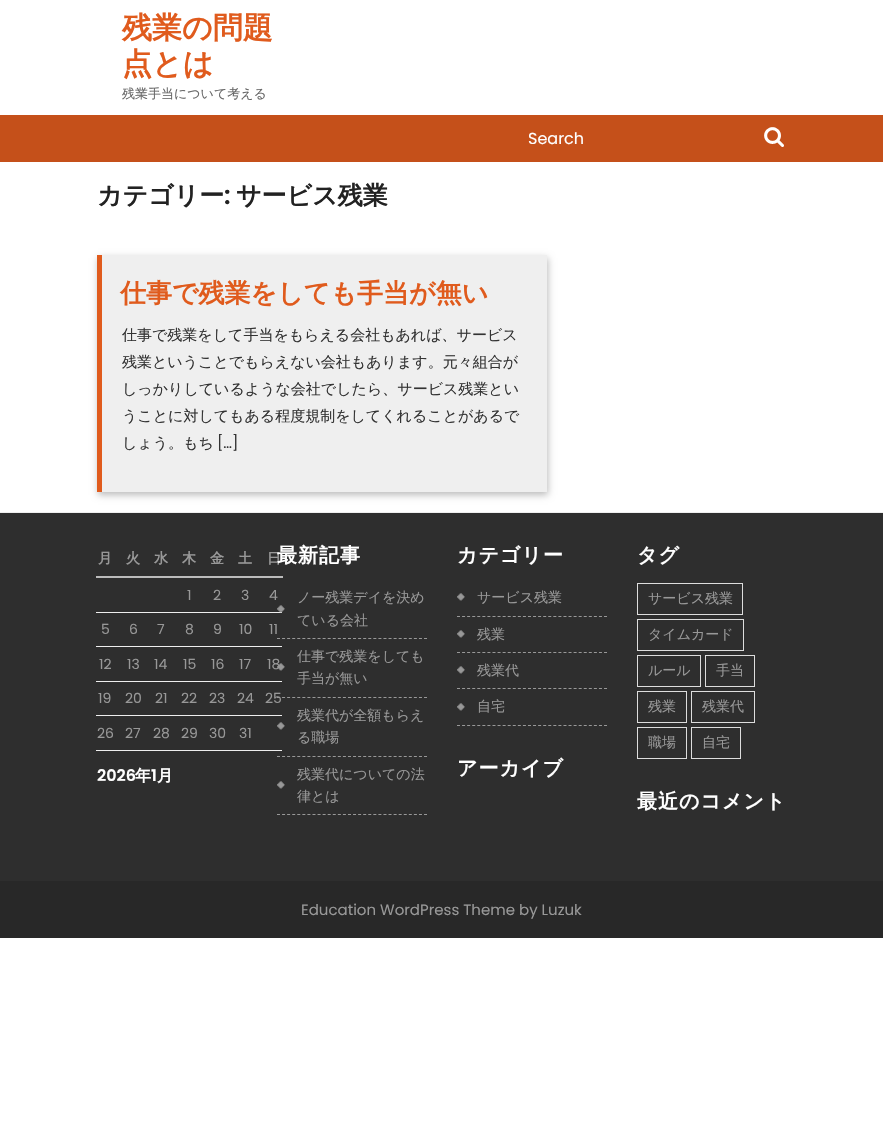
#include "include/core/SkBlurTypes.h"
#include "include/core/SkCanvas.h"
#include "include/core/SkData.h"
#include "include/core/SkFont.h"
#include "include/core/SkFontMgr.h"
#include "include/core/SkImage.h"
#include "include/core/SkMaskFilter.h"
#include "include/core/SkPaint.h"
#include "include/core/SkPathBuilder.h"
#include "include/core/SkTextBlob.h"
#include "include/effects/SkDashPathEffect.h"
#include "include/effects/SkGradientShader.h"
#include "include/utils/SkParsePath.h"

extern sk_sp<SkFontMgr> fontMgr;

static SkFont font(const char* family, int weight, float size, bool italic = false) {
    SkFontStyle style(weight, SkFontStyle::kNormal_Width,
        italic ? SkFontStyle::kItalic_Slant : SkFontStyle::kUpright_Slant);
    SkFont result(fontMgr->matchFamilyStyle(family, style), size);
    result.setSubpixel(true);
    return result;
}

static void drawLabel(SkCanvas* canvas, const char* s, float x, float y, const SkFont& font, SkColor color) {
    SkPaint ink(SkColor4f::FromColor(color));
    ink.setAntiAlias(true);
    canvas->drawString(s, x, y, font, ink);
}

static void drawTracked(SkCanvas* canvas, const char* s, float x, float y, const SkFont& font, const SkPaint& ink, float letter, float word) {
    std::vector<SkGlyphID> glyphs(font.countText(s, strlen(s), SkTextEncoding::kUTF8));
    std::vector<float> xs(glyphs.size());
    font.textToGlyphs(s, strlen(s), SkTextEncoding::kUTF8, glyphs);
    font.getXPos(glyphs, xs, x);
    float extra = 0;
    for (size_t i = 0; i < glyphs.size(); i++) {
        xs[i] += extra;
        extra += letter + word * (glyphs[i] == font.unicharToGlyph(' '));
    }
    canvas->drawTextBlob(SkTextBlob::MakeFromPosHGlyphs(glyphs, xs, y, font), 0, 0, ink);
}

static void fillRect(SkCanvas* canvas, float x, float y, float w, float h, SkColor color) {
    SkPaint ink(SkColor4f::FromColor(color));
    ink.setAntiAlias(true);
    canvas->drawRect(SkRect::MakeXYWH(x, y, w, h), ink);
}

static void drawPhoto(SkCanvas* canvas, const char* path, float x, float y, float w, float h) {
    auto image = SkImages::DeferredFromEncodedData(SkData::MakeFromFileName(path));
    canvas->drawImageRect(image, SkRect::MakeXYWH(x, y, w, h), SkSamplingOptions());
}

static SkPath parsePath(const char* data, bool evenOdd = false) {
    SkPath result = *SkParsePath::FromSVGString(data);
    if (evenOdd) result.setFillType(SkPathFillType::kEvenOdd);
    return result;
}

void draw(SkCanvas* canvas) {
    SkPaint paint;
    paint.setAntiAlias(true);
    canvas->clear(0xFFFFFFFF);
    SkFont font1 = font("WenQuanYi Zen Hei", 700, 30);
    drawLabel(canvas, "残業の問題", 122, 38, font1, 0xFFE05B1D);
    drawLabel(canvas, "点とは", 122, 74, font1, 0xFFE05B1D);
    SkFont font2 = font("WenQuanYi Zen Hei", 500, 13);
    drawLabel(canvas, "残業手当について考える", 122, 98, font2, 0xFF666666);
    fillRect(canvas, 0, 115, 883, 47, 0xFFC5501A);
    SkFont font3 = font("Poppins", 400, 16);
    drawLabel(canvas, "Search", 528, 144, font3, 0xFFFFFFFF);
    drawPhoto(canvas, "assets/img1.png", 764, 127, 20, 20);
    SkFont font4 = font("WenQuanYi Zen Hei", 700, 25);
    drawLabel(canvas, "カテゴリー", 97, 204, font4, 0xFF222222);
    SkFont font5 = font("Poppins", 600, 25);
    drawLabel(canvas, ":", 224, 204, font5, 0xFF222222);
    drawLabel(canvas, "サービス残業", 236, 204, font4, 0xFF222222);
    paint.setColor(0xFFBBBBBB);
    paint.setMaskFilter(SkMaskFilter::MakeBlur(kNormal_SkBlurStyle, 3.5f));
    canvas->drawRect(SkRect::MakeXYWH(98, 258, 450, 237), paint);
    paint.setMaskFilter(nullptr);
    fillRect(canvas, 102, 255, 445, 237, 0xFFEFEFEF);
    fillRect(canvas, 97, 255, 5, 237, 0xFFE05B1D);
    SkFont font6 = font("WenQuanYi Zen Hei", 700, 26);
    drawLabel(canvas, "仕事で残業をしても手当が無い", 120, 302, font6, 0xFFE05B1D);
    SkFont font7 = font("WenQuanYi Zen Hei", 500, 15);
    drawLabel(canvas, "仕事で残業をして手当をもらえる会社もあれば、サービス", 122, 340, font7, 0xFF333333);
    drawLabel(canvas, "残業ということでもらえない会社もあります。元々組合が", 122, 367, font7, 0xFF333333);
    drawLabel(canvas, "しっかりしているような会社でしたら、サービス残業とい", 122, 394, font7, 0xFF333333);
    drawLabel(canvas, "うことに対してもある程度規制をしてくれることがあるで", 122, 421, font7, 0xFF333333);
    drawLabel(canvas, "しょう。もち", 122, 448, font7, 0xFF333333);
    SkFont font8 = font("Poppins", 400, 15);
    drawLabel(canvas, "[…]", 217, 448, font8, 0xFF333333);
    fillRect(canvas, 0, 513, 883, 368, 0xFF2E2E2E);
    fillRect(canvas, 0, 512, 883, 1, 0xFFEEEEEE);
    SkFont font9 = font("WenQuanYi Zen Hei", 700, 14);
    drawLabel(canvas, "月", 98, 563, font9, 0xFF989898);
    drawLabel(canvas, "火", 126, 563, font9, 0xFF989898);
    drawLabel(canvas, "水", 154, 563, font9, 0xFF989898);
    drawLabel(canvas, "木", 182, 563, font9, 0xFF989898);
    drawLabel(canvas, "金", 210, 563, font9, 0xFF989898);
    drawLabel(canvas, "土", 238, 563, font9, 0xFF989898);
    fillRect(canvas, 96, 576, 187, 2, 0xFFBBBBBB);
    drawLabel(canvas, "日", 267, 563, font9, 0xFF989898);
    fillRect(canvas, 96, 612, 186, 1, 0xFFEEEEEE);
    SkFont font10 = font("Poppins", 400, 14);
    drawLabel(canvas, "1", 187, 600, font10, 0xFF989898);
    drawLabel(canvas, "2", 213, 600, font10, 0xFF989898);
    drawLabel(canvas, "3", 241, 600, font10, 0xFF989898);
    drawLabel(canvas, "4", 269, 600, font10, 0xFF989898);
    fillRect(canvas, 96, 646, 186, 1, 0xFFEEEEEE);
    drawLabel(canvas, "5", 101, 634, font10, 0xFF989898);
    drawLabel(canvas, "6", 129, 634, font10, 0xFF989898);
    drawLabel(canvas, "7", 157, 634, font10, 0xFF989898);
    drawLabel(canvas, "8", 185, 634, font10, 0xFF989898);
    drawLabel(canvas, "9", 213, 634, font10, 0xFF989898);
    drawLabel(canvas, "10", 239, 634, font10, 0xFF989898);
    drawLabel(canvas, "11", 269, 634, font10, 0xFF989898);
    fillRect(canvas, 96, 681, 186, 1, 0xFFEEEEEE);
    drawLabel(canvas, "12", 99, 669, font10, 0xFF989898);
    drawLabel(canvas, "13", 127, 669, font10, 0xFF989898);
    drawLabel(canvas, "14", 154, 669, font10, 0xFF989898);
    drawLabel(canvas, "15", 183, 669, font10, 0xFF989898);
    drawLabel(canvas, "16", 211, 669, font10, 0xFF989898);
    drawLabel(canvas, "17", 239, 669, font10, 0xFF989898);
    drawLabel(canvas, "18", 267, 669, font10, 0xFF989898);
    fillRect(canvas, 96, 715, 186, 1, 0xFFEEEEEE);
    drawLabel(canvas, "19", 98, 703, font10, 0xFF989898);
    drawLabel(canvas, "20", 125, 703, font10, 0xFF989898);
    drawLabel(canvas, "21", 155, 703, font10, 0xFF989898);
    drawLabel(canvas, "22", 181, 703, font10, 0xFF989898);
    drawLabel(canvas, "23", 209, 703, font10, 0xFF989898);
    drawLabel(canvas, "24", 237, 703, font10, 0xFF989898);
    drawLabel(canvas, "25", 265, 703, font10, 0xFF989898);
    fillRect(canvas, 96, 750, 186, 1, 0xFFEEEEEE);
    drawLabel(canvas, "26", 97, 738, font10, 0xFF989898);
    drawLabel(canvas, "27", 125, 738, font10, 0xFF989898);
    drawLabel(canvas, "28", 153, 738, font10, 0xFF989898);
    drawLabel(canvas, "29", 181, 738, font10, 0xFF989898);
    drawLabel(canvas, "30", 209, 738, font10, 0xFF989898);
    drawLabel(canvas, "31", 239, 738, font10, 0xFF989898);
    SkFont font11 = font("Poppins", 600, 16);
    drawLabel(canvas, "2026", 97, 781, font11, 0xFFFFFFFF);
    SkFont font12 = font("WenQuanYi Zen Hei", 700, 16);
    drawLabel(canvas, "年", 135, 781, font12, 0xFFFFFFFF);
    drawLabel(canvas, "1", 151, 781, font11, 0xFFFFFFFF);
    drawLabel(canvas, "月", 157, 781, font12, 0xFFFFFFFF);
    SkFont font13 = font("WenQuanYi Zen Hei", 700, 20);
    paint.setColor(0xFFFFFFFF);
    drawTracked(canvas, "最新記事", 277, 562, font13, paint, 1, 0);
    drawPhoto(canvas, "assets/img2.png", 277, 605, 8, 8);
    paint.setStroke(true);
    paint.setStrokeWidth(1);
    paint.setColor(0xFF989898);
    paint.setPathEffect(SkDashPathEffect::Make({{3, 2.07f}}, 0));
    canvas->drawPath(parsePath("M277 638.5H427"), paint);
    paint.setPathEffect(nullptr);
    SkFont font14 = font("WenQuanYi Zen Hei", 500, 14);
    drawLabel(canvas, "ノー残業デイを決め", 297, 602, font14, 0xFF989898);
    drawLabel(canvas, "ている会社", 297, 625, font14, 0xFF989898);
    drawPhoto(canvas, "assets/img3.png", 277, 663, 8, 8);
    paint.setPathEffect(SkDashPathEffect::Make({{3, 2.07f}}, 0));
    canvas->drawPath(parsePath("M277 697.5H427"), paint);
    paint.setPathEffect(nullptr);
    drawLabel(canvas, "仕事で残業をしても", 297, 661, font14, 0xFF989898);
    drawLabel(canvas, "手当が無い", 297, 683, font14, 0xFF989898);
    drawPhoto(canvas, "assets/img4.png", 277, 722, 8, 8);
    paint.setPathEffect(SkDashPathEffect::Make({{3, 2.07f}}, 0));
    canvas->drawPath(parsePath("M277 756.5H427"), paint);
    paint.setPathEffect(nullptr);
    drawLabel(canvas, "残業代が全額もらえ", 297, 720, font14, 0xFF989898);
    drawLabel(canvas, "る職場", 297, 742, font14, 0xFF989898);
    drawPhoto(canvas, "assets/img4.png", 277, 781, 8, 8);
    paint.setPathEffect(SkDashPathEffect::Make({{3, 2.07f}}, 0));
    canvas->drawPath(parsePath("M277 814.5H427"), paint);
    paint.setPathEffect(nullptr);
    drawLabel(canvas, "残業代についての法", 297, 779, font14, 0xFF989898);
    drawLabel(canvas, "律とは", 297, 801, font14, 0xFF989898);
    paint.setStroke(false);
    paint.setColor(0xFFFFFFFF);
    drawTracked(canvas, "カテゴリー", 457, 562, font13, paint, 1, 0);
    drawPhoto(canvas, "assets/img4.png", 457, 593, 8, 8);
    paint.setStroke(true);
    paint.setColor(0xFF989898);
    paint.setPathEffect(SkDashPathEffect::Make({{3, 2.07f}}, 0));
    canvas->drawPath(parsePath("M457 616.5H607"), paint);
    paint.setPathEffect(nullptr);
    drawLabel(canvas, "サービス残業", 477, 602, font14, 0xFF989898);
    drawPhoto(canvas, "assets/img4.png", 457, 630, 8, 8);
    paint.setPathEffect(SkDashPathEffect::Make({{3, 2.07f}}, 0));
    canvas->drawPath(parsePath("M457 652.5H607"), paint);
    paint.setPathEffect(nullptr);
    drawLabel(canvas, "残業", 477, 639, font14, 0xFF989898);
    drawPhoto(canvas, "assets/img4.png", 457, 666, 8, 8);
    paint.setPathEffect(SkDashPathEffect::Make({{3, 2.07f}}, 0));
    canvas->drawPath(parsePath("M457 688.5H607"), paint);
    paint.setPathEffect(nullptr);
    drawLabel(canvas, "残業代", 477, 675, font14, 0xFF989898);
    drawPhoto(canvas, "assets/img4.png", 457, 703, 8, 8);
    paint.setPathEffect(SkDashPathEffect::Make({{3, 2.07f}}, 0));
    canvas->drawPath(parsePath("M457 725.5H607"), paint);
    paint.setPathEffect(nullptr);
    drawLabel(canvas, "自宅", 477, 711, font14, 0xFF989898);
    paint.setStroke(false);
    paint.setColor(0xFFFFFFFF);
    drawTracked(canvas, "アーカイブ", 457, 775, font13, paint, 1, 0);
    drawTracked(canvas, "タグ", 637, 562, font13, paint, 1, 0);
    paint.setStroke(true);
    paint.setColor(0xFFDDDDDD);
    canvas->drawRect(SkRect::MakeXYWH(637.5f, 583.5f, 105, 31), paint);
    drawLabel(canvas, "サービス残業", 648, 603, font14, 0xFF989898);
    canvas->drawRect(SkRect::MakeXYWH(637.5f, 619.5f, 106, 31), paint);
    drawLabel(canvas, "タイムカード", 648, 639, font14, 0xFF989898);
    canvas->drawRect(SkRect::MakeXYWH(637.5f, 655.5f, 63, 31), paint);
    drawLabel(canvas, "ルール", 648, 675, font14, 0xFF989898);
    canvas->drawRect(SkRect::MakeXYWH(705.5f, 655.5f, 49, 31), paint);
    drawLabel(canvas, "手当", 716, 675, font14, 0xFF989898);
    canvas->drawRect(SkRect::MakeXYWH(637.5f, 691.5f, 49, 31), paint);
    drawLabel(canvas, "残業", 648, 711, font14, 0xFF989898);
    canvas->drawRect(SkRect::MakeXYWH(691.5f, 691.5f, 63, 31), paint);
    drawLabel(canvas, "残業代", 702, 711, font14, 0xFF989898);
    canvas->drawRect(SkRect::MakeXYWH(637.5f, 727.5f, 49, 31), paint);
    drawLabel(canvas, "職場", 648, 747, font14, 0xFF989898);
    canvas->drawRect(SkRect::MakeXYWH(691.5f, 727.5f, 49, 31), paint);
    drawLabel(canvas, "自宅", 702, 747, font14, 0xFF989898);
    paint.setStroke(false);
    paint.setColor(0xFFFFFFFF);
    drawTracked(canvas, "最近のコメント", 637, 808, font13, paint, 1, 0);
    fillRect(canvas, 0, 881, 883, 57, 0xFF282828);
    drawLabel(canvas, "Education WordPress Theme by Luzuk", 301, 915, font8, 0xFF989898);
}
